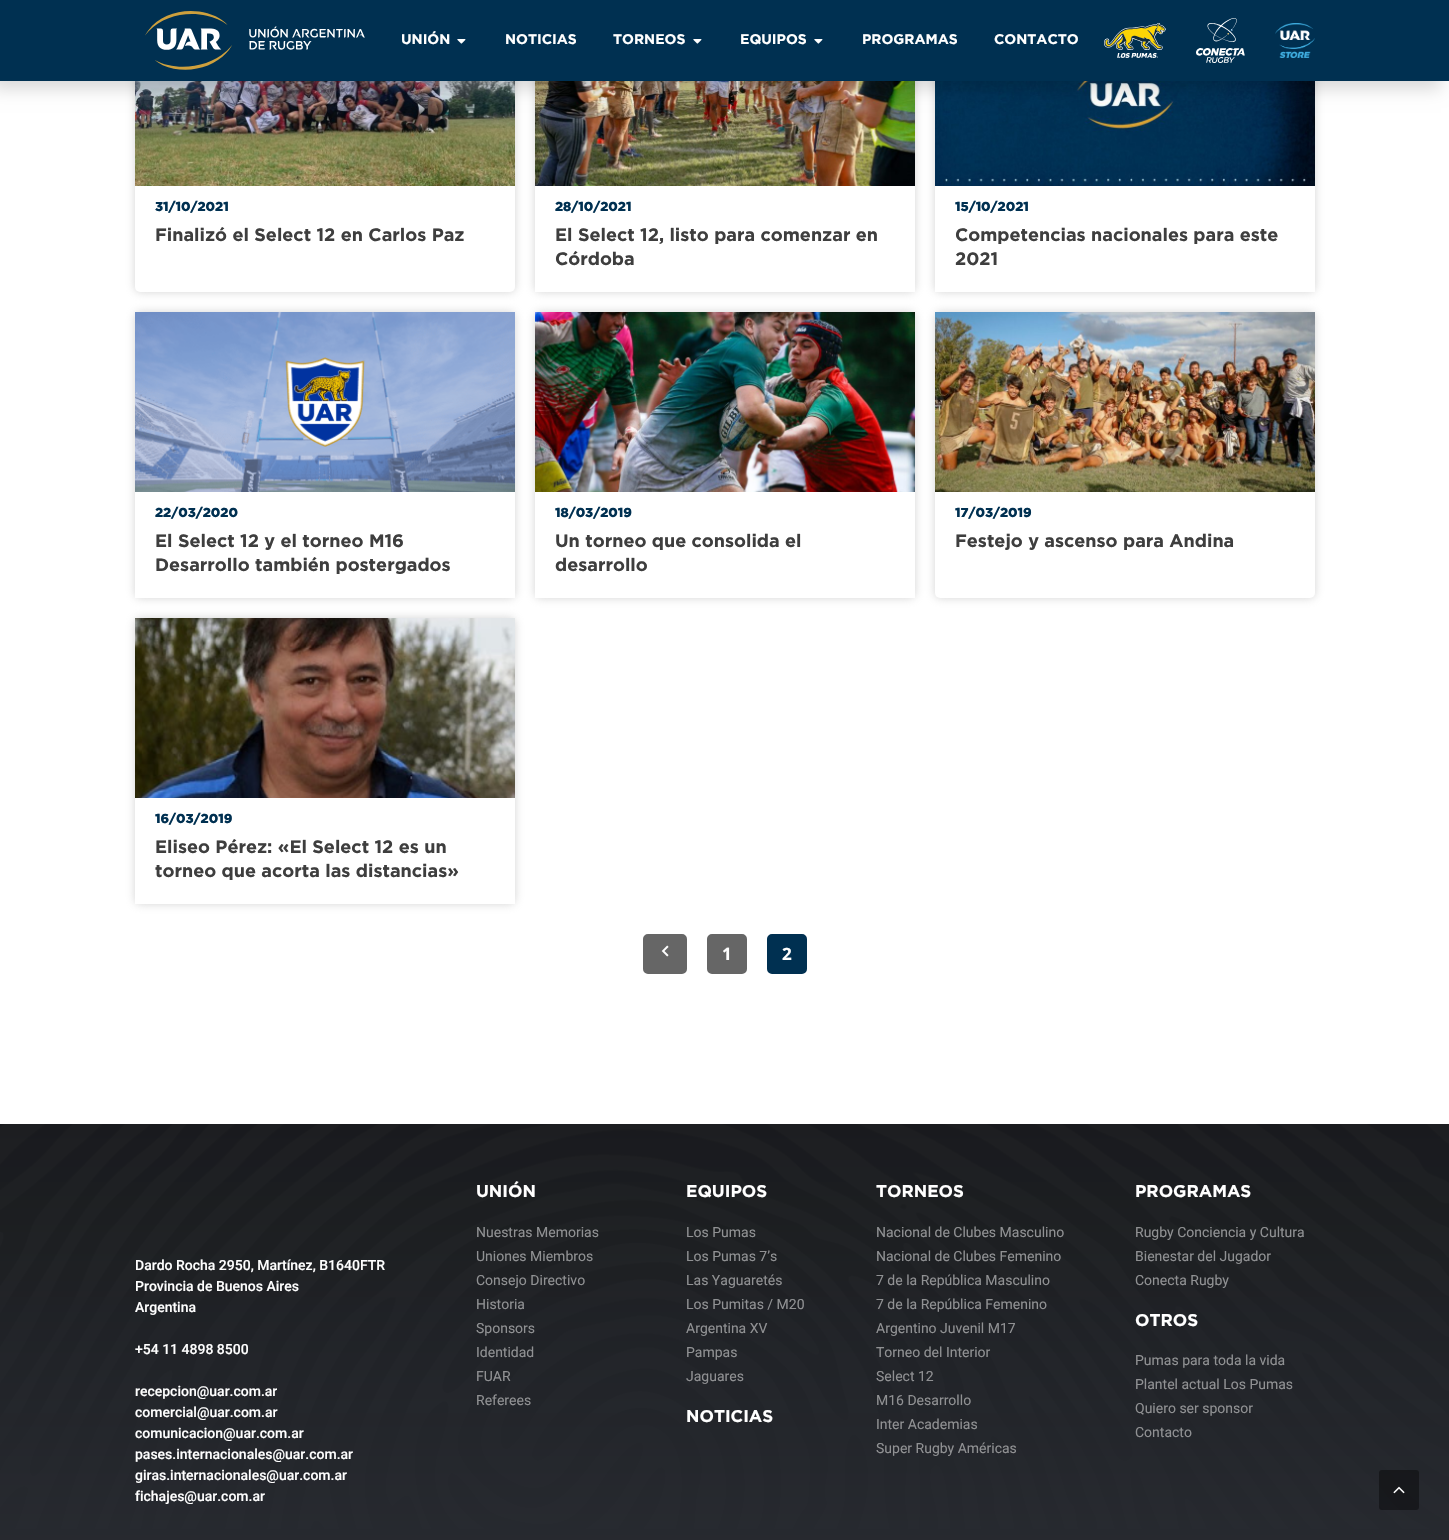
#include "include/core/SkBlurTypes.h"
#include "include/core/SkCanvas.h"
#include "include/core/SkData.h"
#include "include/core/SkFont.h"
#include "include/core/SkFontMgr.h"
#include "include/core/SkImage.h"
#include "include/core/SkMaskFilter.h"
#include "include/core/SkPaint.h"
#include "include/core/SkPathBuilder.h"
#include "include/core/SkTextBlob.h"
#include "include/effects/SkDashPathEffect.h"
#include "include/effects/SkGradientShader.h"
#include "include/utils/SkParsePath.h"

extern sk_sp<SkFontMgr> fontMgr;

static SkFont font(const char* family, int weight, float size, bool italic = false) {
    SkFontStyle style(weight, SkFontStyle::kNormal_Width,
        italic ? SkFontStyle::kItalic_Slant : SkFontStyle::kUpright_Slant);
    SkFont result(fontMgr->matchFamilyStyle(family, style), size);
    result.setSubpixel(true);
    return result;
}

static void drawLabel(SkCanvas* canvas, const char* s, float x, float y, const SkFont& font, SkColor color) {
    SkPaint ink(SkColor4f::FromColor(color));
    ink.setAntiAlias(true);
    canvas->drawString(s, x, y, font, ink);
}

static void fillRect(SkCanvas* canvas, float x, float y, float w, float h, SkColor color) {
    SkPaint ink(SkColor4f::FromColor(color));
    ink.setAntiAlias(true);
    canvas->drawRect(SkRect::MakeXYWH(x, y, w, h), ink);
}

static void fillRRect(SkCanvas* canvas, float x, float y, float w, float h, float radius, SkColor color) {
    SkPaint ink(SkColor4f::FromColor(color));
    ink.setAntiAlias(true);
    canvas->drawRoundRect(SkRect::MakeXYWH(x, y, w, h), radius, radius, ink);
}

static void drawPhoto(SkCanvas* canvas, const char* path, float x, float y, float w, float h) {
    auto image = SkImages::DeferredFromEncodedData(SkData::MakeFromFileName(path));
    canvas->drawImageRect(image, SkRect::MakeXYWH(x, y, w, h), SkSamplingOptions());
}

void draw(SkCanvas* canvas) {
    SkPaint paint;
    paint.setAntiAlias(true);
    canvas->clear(0xFFFFFFFF);
    paint.setColor(0x80A8A8A8);
    paint.setMaskFilter(SkMaskFilter::MakeBlur(kNormal_SkBlurStyle, 5));
    canvas->drawRoundRect(SkRect::MakeXYWH(135, 6, 380, 286), 5, 5, paint);
    paint.setMaskFilter(nullptr);
    fillRRect(canvas, 135, 6, 380, 286, 5, 0xFFFFFFFF);
    drawPhoto(canvas, "assets/img6.png", 135, 81, 380, 105);
    paint.setMaskFilter(SkMaskFilter::MakeBlur(kNormal_SkBlurStyle, 5));
    canvas->drawRoundRect(SkRect::MakeXYWH(535, 6, 380, 286), 5, 5, paint);
    paint.setMaskFilter(nullptr);
    drawPhoto(canvas, "assets/img7.png", 535, 81, 380, 105);
    paint.setMaskFilter(SkMaskFilter::MakeBlur(kNormal_SkBlurStyle, 5));
    canvas->drawRoundRect(SkRect::MakeXYWH(935, 6, 380, 286), 5, 5, paint);
    paint.setMaskFilter(nullptr);
    drawPhoto(canvas, "assets/img8.png", 935, 81, 380, 105);
    paint.setColor(0x26000000);
    paint.setMaskFilter(SkMaskFilter::MakeBlur(kNormal_SkBlurStyle, 8));
    canvas->drawRect(SkRect::MakeXYWH(-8, 8, 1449, 81), paint);
    paint.setMaskFilter(nullptr);
    fillRect(canvas, 0, 0, 1449, 81, 0xFF003051);
    drawPhoto(canvas, "assets/img1.png", 145, 11, 220, 59);
    SkFont font1 = font("Gotham", 700, 14);
    drawLabel(canvas, "UNIÓN", 401, 44, font1, 0xFFFFFFFF);
    drawPhoto(canvas, "assets/img2.png", 457, 39, 9, 5);
    drawLabel(canvas, "NOTICIAS", 505, 44, font1, 0xFFFFFFFF);
    drawLabel(canvas, "TORNEOS", 613, 44, font1, 0xFFFFFFFF);
    drawPhoto(canvas, "assets/img2.png", 693, 39, 9, 5);
    drawLabel(canvas, "EQUIPOS", 740, 44, font1, 0xFFFFFFFF);
    drawPhoto(canvas, "assets/img2.png", 814, 39, 9, 5);
    drawLabel(canvas, "PROGRAMAS", 862, 44, font1, 0xFFFFFFFF);
    drawLabel(canvas, "CONTACTO", 994, 44, font1, 0xFFFFFFFF);
    drawPhoto(canvas, "assets/img3.png", 1104, 23, 62, 35);
    drawPhoto(canvas, "assets/img4.png", 1196, 18, 49, 45);
    drawPhoto(canvas, "assets/img5.png", 1275, 23, 40, 35);
    SkFont font2 = font("Gotham", 900, 13);
    drawLabel(canvas, "31/10/2021", 155, 211, font2, 0xFF003051);
    SkFont font3 = font("Gotham", 700, 18);
    drawLabel(canvas, "Finalizó el Select 12 en Carlos Paz", 155, 241, font3, 0xFF3E3E3E);
    fillRect(canvas, 535, 186, 380, 106, 0xFFFFFFFF);
    drawLabel(canvas, "28/10/2021", 555, 211, font2, 0xFF003051);
    drawLabel(canvas, "El Select 12, listo para comenzar en", 555, 241, font3, 0xFF3E3E3E);
    drawLabel(canvas, "Córdoba", 555, 265, font3, 0xFF3E3E3E);
    fillRect(canvas, 935, 186, 380, 106, 0xFFFFFFFF);
    drawLabel(canvas, "15/10/2021", 955, 211, font2, 0xFF003051);
    drawLabel(canvas, "Competencias nacionales para este", 955, 241, font3, 0xFF3E3E3E);
    drawLabel(canvas, "2021", 955, 265, font3, 0xFF3E3E3E);
    paint.setColor(0x80A8A8A8);
    paint.setMaskFilter(SkMaskFilter::MakeBlur(kNormal_SkBlurStyle, 5));
    canvas->drawRoundRect(SkRect::MakeXYWH(135, 312, 380, 286), 5, 5, paint);
    paint.setMaskFilter(nullptr);
    fillRect(canvas, 135, 492, 380, 106, 0xFFFFFFFF);
    drawPhoto(canvas, "assets/img9.png", 135, 312, 380, 180);
    drawLabel(canvas, "22/03/2020", 155, 517, font2, 0xFF003051);
    drawLabel(canvas, "El Select 12 y el torneo M16", 155, 547, font3, 0xFF3E3E3E);
    drawLabel(canvas, "Desarrollo también postergados", 155, 571, font3, 0xFF3E3E3E);
    paint.setMaskFilter(SkMaskFilter::MakeBlur(kNormal_SkBlurStyle, 5));
    canvas->drawRoundRect(SkRect::MakeXYWH(535, 312, 380, 286), 5, 5, paint);
    paint.setMaskFilter(nullptr);
    fillRect(canvas, 535, 492, 380, 106, 0xFFFFFFFF);
    drawPhoto(canvas, "assets/img10.png", 535, 312, 380, 180);
    drawLabel(canvas, "18/03/2019", 555, 517, font2, 0xFF003051);
    drawLabel(canvas, "Un torneo que consolida el", 555, 547, font3, 0xFF3E3E3E);
    drawLabel(canvas, "desarrollo", 555, 571, font3, 0xFF3E3E3E);
    paint.setMaskFilter(SkMaskFilter::MakeBlur(kNormal_SkBlurStyle, 5));
    canvas->drawRoundRect(SkRect::MakeXYWH(935, 312, 380, 286), 5, 5, paint);
    paint.setMaskFilter(nullptr);
    fillRRect(canvas, 935, 312, 380, 286, 5, 0xFFFFFFFF);
    drawPhoto(canvas, "assets/img11.png", 935, 312, 380, 180);
    drawLabel(canvas, "17/03/2019", 955, 517, font2, 0xFF003051);
    drawLabel(canvas, "Festejo y ascenso para Andina", 955, 547, font3, 0xFF3E3E3E);
    paint.setMaskFilter(SkMaskFilter::MakeBlur(kNormal_SkBlurStyle, 5));
    canvas->drawRoundRect(SkRect::MakeXYWH(135, 618, 380, 286), 5, 5, paint);
    paint.setMaskFilter(nullptr);
    fillRect(canvas, 135, 798, 380, 106, 0xFFFFFFFF);
    drawPhoto(canvas, "assets/img12.png", 135, 618, 380, 180);
    drawLabel(canvas, "16/03/2019", 155, 823, font2, 0xFF003051);
    drawLabel(canvas, "Eliseo Pérez: «El Select 12 es un", 155, 853, font3, 0xFF3E3E3E);
    drawLabel(canvas, "torneo que acorta las distancias»", 155, 877, font3, 0xFF3E3E3E);
    paint.setColor(0xFF666666);
    canvas->drawRoundRect(SkRect::MakeXYWH(644, 935, 42, 38), 4, 4, paint);
    paint.setStroke(true);
    paint.setStrokeWidth(2);
    canvas->drawRoundRect(SkRect::MakeXYWH(644, 935, 42, 38), 4, 4, paint);
    drawPhoto(canvas, "assets/img13.png", 661, 945, 8, 12);
    paint.setStroke(false);
    canvas->drawRoundRect(SkRect::MakeXYWH(708, 935, 38, 38), 4, 4, paint);
    paint.setStroke(true);
    canvas->drawRoundRect(SkRect::MakeXYWH(708, 935, 38, 38), 4, 4, paint);
    SkFont font4 = font("Noto Sans", 700, 17);
    drawLabel(canvas, "1", 722, 960, font4, 0xFFFFFFFF);
    paint.setStroke(false);
    paint.setColor(0xFF003051);
    canvas->drawRoundRect(SkRect::MakeXYWH(768, 935, 38, 38), 4, 4, paint);
    paint.setStroke(true);
    canvas->drawRoundRect(SkRect::MakeXYWH(768, 935, 38, 38), 4, 4, paint);
    drawLabel(canvas, "2", 782, 960, font4, 0xFFFFFFFF);
    fillRect(canvas, 0, 1124, 1449, 408, 0xFF2C2E35);
    drawPhoto(canvas, "assets/img14.png", 0, 1124, 1449, 408);
    paint.setStroke(false);
    {
        const SkColor colors[] = {0xFA181A1D, 0xFF2B2E35};
        const float stops[] = {0, 1};
        const SkPoint ends[] = {{725, 1124}, {725, 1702}};
        paint.setShader(SkGradientShader::MakeLinear(ends, colors, stops, 2, SkTileMode::kClamp));
        paint.setAlpha(255);
    }
    canvas->drawRect(SkRect::MakeXYWH(0, 1124, 1449, 416), paint);
    SkFont font5 = font("Roboto", 500, 14);
    drawLabel(canvas, "Dardo Rocha 2950, Martínez, B1640FTR", 135, 1270, font5, 0xFFFFFFFF);
    drawLabel(canvas, "Provincia de Buenos Aires", 135, 1291, font5, 0xFFFFFFFF);
    drawLabel(canvas, "Argentina", 135, 1312, font5, 0xFFFFFFFF);
    drawLabel(canvas, "+54 11 4898 8500", 135, 1354, font5, 0xFFFFFFFF);
    drawLabel(canvas, "recepcion@uar.com.ar", 135, 1396, font5, 0xFFFFFFFF);
    drawLabel(canvas, "comercial@uar.com.ar", 135, 1417, font5, 0xFFFFFFFF);
    drawLabel(canvas, "comunicacion@uar.com.ar", 135, 1438, font5, 0xFFFFFFFF);
    drawLabel(canvas, "pases.internacionales@uar.com.ar", 135, 1459, font5, 0xFFFFFFFF);
    drawLabel(canvas, "giras.internacionales@uar.com.ar", 135, 1480, font5, 0xFFFFFFFF);
    drawLabel(canvas, "fichajes@uar.com.ar", 135, 1501, font5, 0xFFFFFFFF);
    SkFont font6 = font("Gotham", 700, 17);
    drawLabel(canvas, "UNIÓN", 476, 1197, font6, 0xFFFFFFFF);
    SkFont font7 = font("Roboto", 400, 14);
    drawLabel(canvas, "Nuestras Memorias", 476, 1237, font7, 0xFF909193);
    drawLabel(canvas, "Uniones Miembros", 476, 1261, font7, 0xFF909193);
    drawLabel(canvas, "Consejo Directivo", 476, 1285, font7, 0xFF909193);
    drawLabel(canvas, "Historia", 476, 1309, font7, 0xFF909193);
    drawLabel(canvas, "Sponsors", 476, 1333, font7, 0xFF909193);
    drawLabel(canvas, "Identidad", 476, 1357, font7, 0xFF909193);
    drawLabel(canvas, "FUAR", 476, 1381, font7, 0xFF909193);
    drawLabel(canvas, "Referees", 476, 1405, font7, 0xFF909193);
    drawLabel(canvas, "EQUIPOS", 686, 1197, font6, 0xFFFFFFFF);
    drawLabel(canvas, "Los Pumas", 686, 1237, font7, 0xFF909193);
    drawLabel(canvas, "Los Pumas 7’s", 686, 1261, font7, 0xFF909193);
    drawLabel(canvas, "Las Yaguaretés", 686, 1285, font7, 0xFF909193);
    drawLabel(canvas, "Los Pumitas / M20", 686, 1309, font7, 0xFF909193);
    drawLabel(canvas, "Argentina XV", 686, 1333, font7, 0xFF909193);
    drawLabel(canvas, "Pampas", 686, 1357, font7, 0xFF909193);
    drawLabel(canvas, "Jaguares", 686, 1381, font7, 0xFF909193);
    drawLabel(canvas, "NOTICIAS", 686, 1422, font6, 0xFFFFFFFF);
    drawLabel(canvas, "TORNEOS", 876, 1197, font6, 0xFFFFFFFF);
    drawLabel(canvas, "Nacional de Clubes Masculino", 876, 1237, font7, 0xFF909193);
    drawLabel(canvas, "Nacional de Clubes Femenino", 876, 1261, font7, 0xFF909193);
    drawLabel(canvas, "7 de la República Masculino", 876, 1285, font7, 0xFF909193);
    drawLabel(canvas, "7 de la República Femenino", 876, 1309, font7, 0xFF909193);
    drawLabel(canvas, "Argentino Juvenil M17", 876, 1333, font7, 0xFF909193);
    drawLabel(canvas, "Torneo del Interior", 876, 1357, font7, 0xFF909193);
    drawLabel(canvas, "Select 12", 876, 1381, font7, 0xFF909193);
    drawLabel(canvas, "M16 Desarrollo", 876, 1405, font7, 0xFF909193);
    drawLabel(canvas, "Inter Academias", 876, 1429, font7, 0xFF909193);
    drawLabel(canvas, "Super Rugby Américas", 876, 1453, font7, 0xFF909193);
    drawLabel(canvas, "PROGRAMAS", 1135, 1197, font6, 0xFFFFFFFF);
    drawLabel(canvas, "Rugby Conciencia y Cultura", 1135, 1237, font7, 0xFF909193);
    drawLabel(canvas, "Bienestar del Jugador", 1135, 1261, font7, 0xFF909193);
    drawLabel(canvas, "Conecta Rugby", 1135, 1285, font7, 0xFF909193);
    drawLabel(canvas, "OTROS", 1135, 1326, font6, 0xFFFFFFFF);
    drawLabel(canvas, "Pumas para toda la vida", 1135, 1365, font7, 0xFF909193);
    drawLabel(canvas, "Plantel actual Los Pumas", 1135, 1389, font7, 0xFF909193);
    drawLabel(canvas, "Quiero ser sponsor", 1135, 1413, font7, 0xFF909193);
    drawLabel(canvas, "Contacto", 1135, 1437, font7, 0xFF909193);
    fillRRect(canvas, 1379, 1470, 40, 40, 3, 0x66000000);
    drawPhoto(canvas, "assets/img15.png", 1393, 1486, 12, 8);
}
